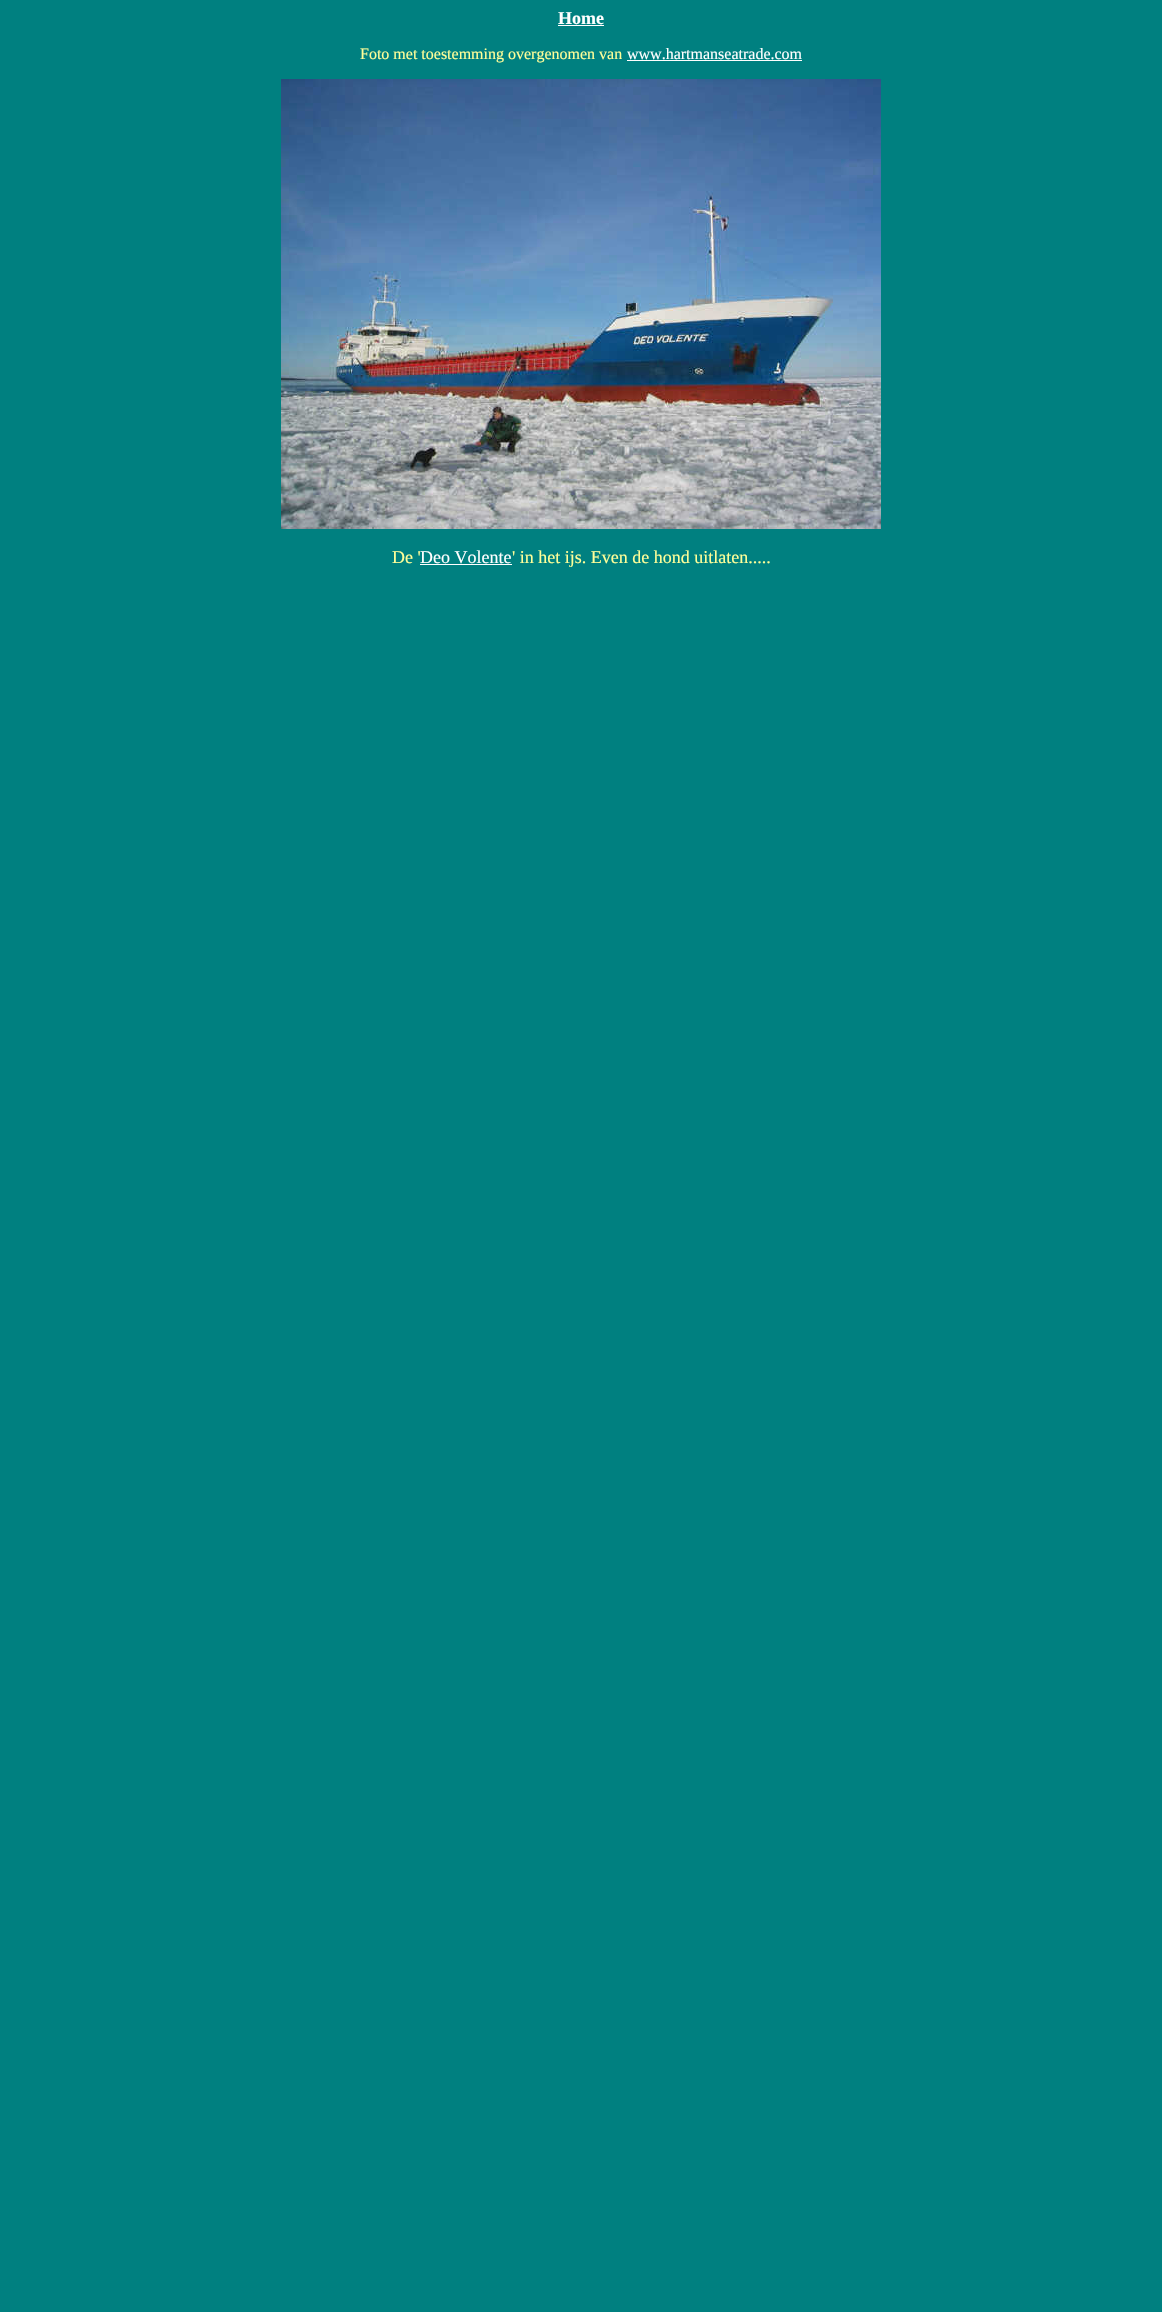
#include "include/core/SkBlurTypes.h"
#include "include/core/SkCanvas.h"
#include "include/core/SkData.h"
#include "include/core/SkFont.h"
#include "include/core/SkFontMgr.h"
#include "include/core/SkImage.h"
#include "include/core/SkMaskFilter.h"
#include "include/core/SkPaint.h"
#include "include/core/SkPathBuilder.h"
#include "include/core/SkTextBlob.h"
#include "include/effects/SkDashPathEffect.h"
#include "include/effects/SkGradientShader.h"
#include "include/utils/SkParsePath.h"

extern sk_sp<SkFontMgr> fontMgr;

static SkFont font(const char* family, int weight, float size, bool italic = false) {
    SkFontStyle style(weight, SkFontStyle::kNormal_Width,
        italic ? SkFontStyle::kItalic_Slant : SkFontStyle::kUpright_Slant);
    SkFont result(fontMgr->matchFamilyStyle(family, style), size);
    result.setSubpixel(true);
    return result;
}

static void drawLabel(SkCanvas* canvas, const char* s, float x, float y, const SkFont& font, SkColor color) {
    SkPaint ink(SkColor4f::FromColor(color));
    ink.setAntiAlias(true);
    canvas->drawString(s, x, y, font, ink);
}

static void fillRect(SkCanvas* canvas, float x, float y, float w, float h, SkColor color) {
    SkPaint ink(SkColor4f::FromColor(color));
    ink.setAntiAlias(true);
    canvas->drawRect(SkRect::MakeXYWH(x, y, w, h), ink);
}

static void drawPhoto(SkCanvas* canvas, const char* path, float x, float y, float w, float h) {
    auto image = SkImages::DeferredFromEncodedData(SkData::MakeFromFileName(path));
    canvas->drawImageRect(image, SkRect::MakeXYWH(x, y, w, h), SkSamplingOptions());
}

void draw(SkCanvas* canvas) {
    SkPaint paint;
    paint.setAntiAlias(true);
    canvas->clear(0xFF008080);
    SkFont font1 = font("Liberation Serif", 700, 18);
    drawLabel(canvas, "Home", 558, 24, font1, 0xFFFFFFFF);
    fillRect(canvas, 558, 25, 46, 1, 0xFFFFFFFF);
    SkFont font2 = font("Liberation Serif", 400, 16);
    drawLabel(canvas, "Foto met toestemming overgenomen van", 360, 59, font2, 0xFFFFFF99);
    drawLabel(canvas, "www.hartmanseatrade.com", 627, 59, font2, 0xFFFFFFFF);
    fillRect(canvas, 627, 60, 175, 1, 0xFFFFFFFF);
    drawPhoto(canvas, "assets/img1.png", 281, 79, 600, 450);
    SkFont font3 = font("Liberation Serif", 400, 18);
    drawLabel(canvas, "De '", 392, 563, font3, 0xFFFFFF99);
    drawLabel(canvas, "Deo Volente", 420, 563, font3, 0xFFFFFFFF);
    fillRect(canvas, 420, 564, 92, 1, 0xFFFFFFFF);
    drawLabel(canvas, "' in het ijs. Even de hond uitlaten.....", 512, 563, font3, 0xFFFFFF99);
}
